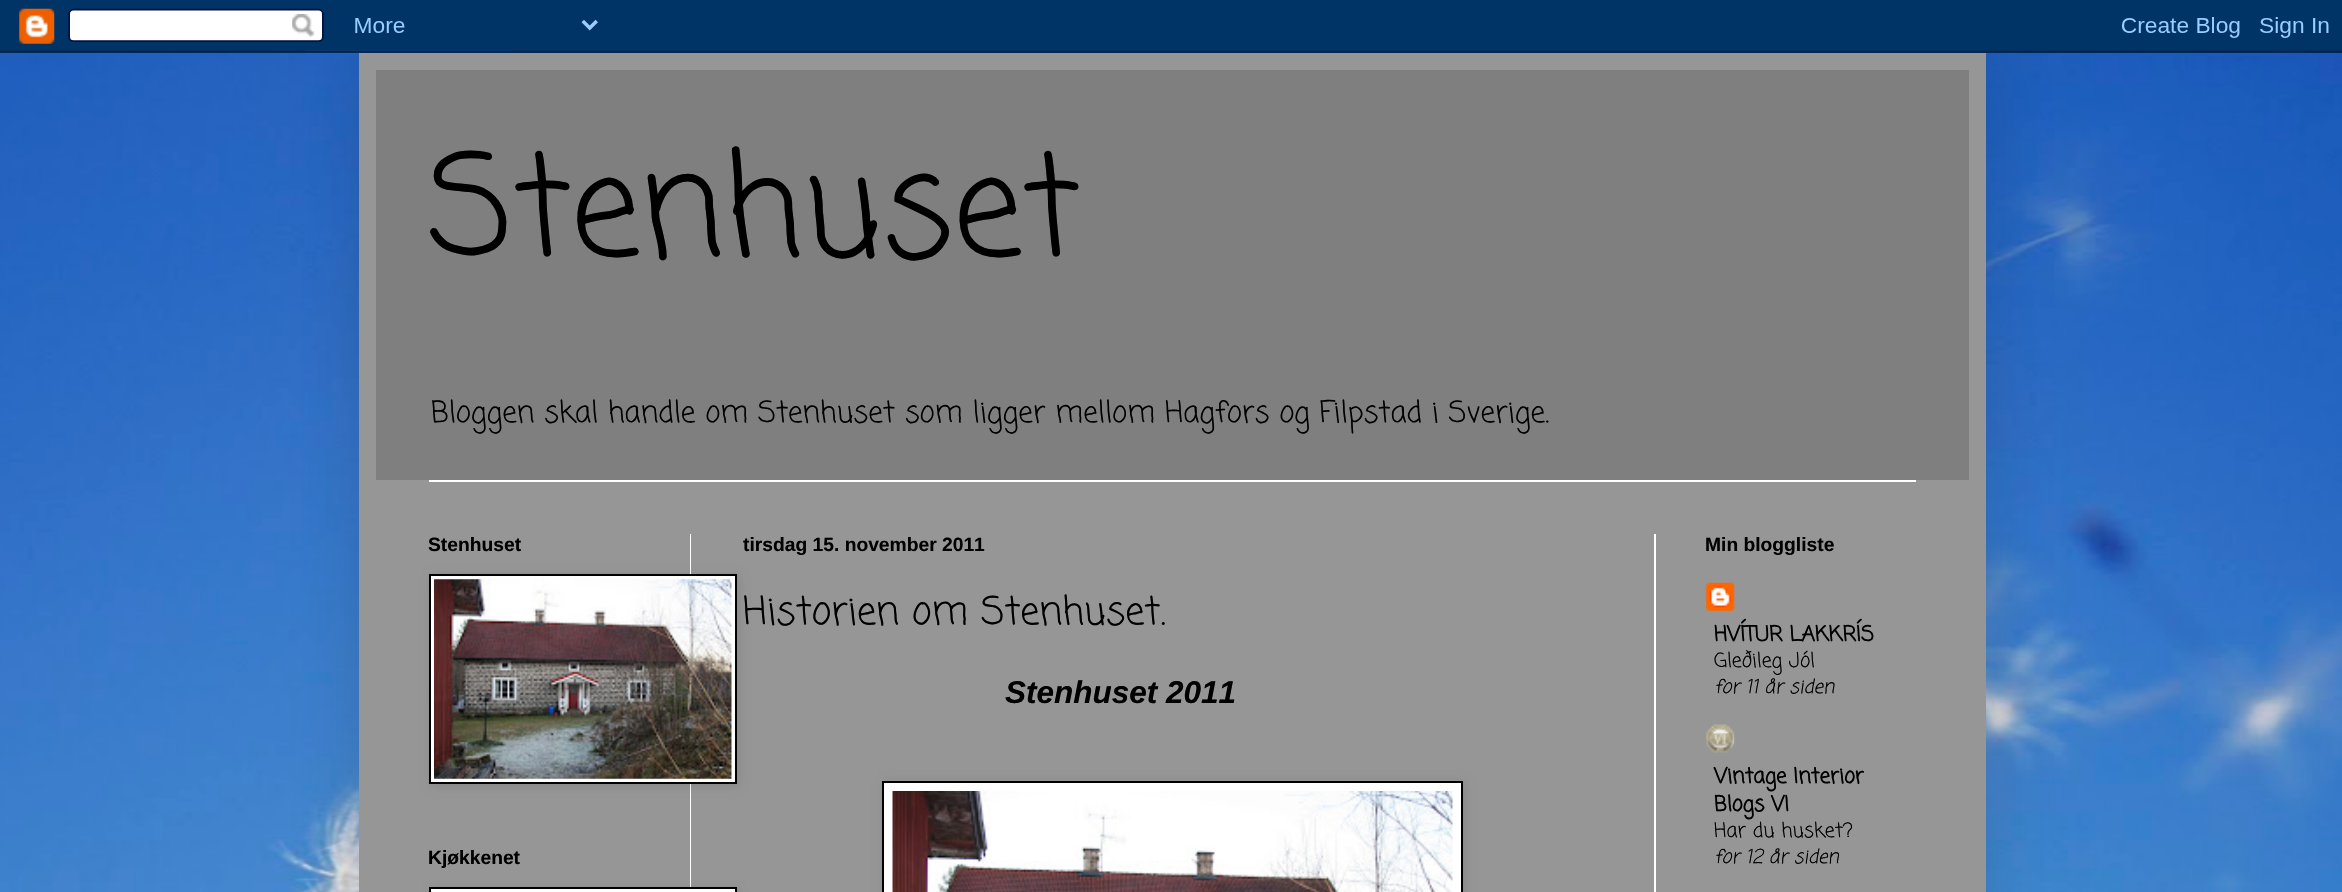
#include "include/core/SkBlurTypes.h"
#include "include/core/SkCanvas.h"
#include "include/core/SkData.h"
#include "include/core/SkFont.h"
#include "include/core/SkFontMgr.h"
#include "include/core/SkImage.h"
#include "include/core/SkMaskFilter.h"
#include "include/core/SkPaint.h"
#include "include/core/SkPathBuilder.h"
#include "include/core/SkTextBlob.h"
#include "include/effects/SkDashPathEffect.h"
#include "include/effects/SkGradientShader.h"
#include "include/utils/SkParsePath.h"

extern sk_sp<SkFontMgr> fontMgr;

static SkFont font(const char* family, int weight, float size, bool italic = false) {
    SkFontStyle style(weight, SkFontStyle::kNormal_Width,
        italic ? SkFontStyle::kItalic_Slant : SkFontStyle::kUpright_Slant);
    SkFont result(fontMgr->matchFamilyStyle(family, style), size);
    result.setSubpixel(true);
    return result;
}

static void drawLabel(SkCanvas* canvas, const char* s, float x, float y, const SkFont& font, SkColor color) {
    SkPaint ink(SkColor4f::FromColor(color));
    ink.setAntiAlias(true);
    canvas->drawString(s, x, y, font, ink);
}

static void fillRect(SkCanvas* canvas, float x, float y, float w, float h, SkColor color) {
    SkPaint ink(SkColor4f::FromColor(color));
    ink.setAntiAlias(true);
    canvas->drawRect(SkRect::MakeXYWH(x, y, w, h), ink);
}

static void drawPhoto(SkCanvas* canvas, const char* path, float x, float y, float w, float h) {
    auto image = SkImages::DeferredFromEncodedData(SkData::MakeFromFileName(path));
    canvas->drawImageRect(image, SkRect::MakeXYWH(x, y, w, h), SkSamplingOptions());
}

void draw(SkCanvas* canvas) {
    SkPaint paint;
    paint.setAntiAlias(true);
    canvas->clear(0xFFFFFFFF);
    drawPhoto(canvas, "assets/img1.png", 0, 50, 2342, 842);
    paint.setColor(0x26000000);
    paint.setMaskFilter(SkMaskFilter::MakeBlur(kNormal_SkBlurStyle, 35));
    canvas->drawRect(SkRect::MakeXYWH(359, 53, 1627, 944), paint);
    paint.setMaskFilter(nullptr);
    drawPhoto(canvas, "assets/img2.png", 0, 0, 2342, 53);
    fillRect(canvas, 359, 53, 1627, 839, 0xFF969696);
    fillRect(canvas, 376, 70, 1593, 410, 0xFF7F7F7F);
    SkFont font1 = font("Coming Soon", 400, 140);
    drawLabel(canvas, "Stenhuset", 428, 254, font1, 0xFF000000);
    SkFont font2 = font("Coming Soon", 400, 29.4f);
    drawLabel(canvas, "Bloggen skal handle om Stenhuset som ligger mellom Hagfors og Filpstad i Sverige.", 431, 422, font2, 0xFF000000);
    fillRect(canvas, 429, 480, 1487, 2, 0xFFFFFFFF);
    fillRect(canvas, 690, 534, 1, 358, 0xFFFFFFFF);
    fillRect(canvas, 1654, 534, 2, 358, 0xFFFFFFFF);
    SkFont font3 = font("Liberation Sans", 700, 19.25f);
    drawLabel(canvas, "Stenhuset", 428, 551, font3, 0xFF000000);
    paint.setColor(0x1A000000);
    paint.setMaskFilter(SkMaskFilter::MakeBlur(kNormal_SkBlurStyle, 4.5f));
    canvas->drawRect(SkRect::MakeXYWH(431, 576, 308, 210), paint);
    paint.setMaskFilter(nullptr);
    paint.setColor(0xFFFFFFFF);
    canvas->drawRect(SkRect::MakeXYWH(430, 575, 306, 208), paint);
    paint.setStroke(true);
    paint.setStrokeWidth(2);
    paint.setColor(0xFF000000);
    canvas->drawRect(SkRect::MakeXYWH(430, 575, 306, 208), paint);
    drawPhoto(canvas, "assets/img3.png", 434, 579, 298, 200);
    drawLabel(canvas, "Kjøkkenet", 428, 864, font3, 0xFF000000);
    paint.setStroke(false);
    paint.setColor(0x1A000000);
    paint.setMaskFilter(SkMaskFilter::MakeBlur(kNormal_SkBlurStyle, 4.5f));
    canvas->drawRect(SkRect::MakeXYWH(431, 889, 308, 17), paint);
    paint.setMaskFilter(nullptr);
    paint.setColor(0xFFFFFFFF);
    canvas->drawRect(SkRect::MakeXYWH(430, 888, 306, 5), paint);
    paint.setStroke(true);
    paint.setColor(0xFF000000);
    canvas->drawRect(SkRect::MakeXYWH(430, 888, 306, 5), paint);
    drawLabel(canvas, "tirsdag 15. november 2011", 743, 551, font3, 0xFF000000);
    SkFont font4 = font("Coming Soon", 400, 38.5f);
    drawLabel(canvas, "Historien om Stenhuset.", 743, 624, font4, 0xFF000000);
    SkFont font5 = font("Liberation Sans", 700, 31.5f, true);
    drawLabel(canvas, "Stenhuset 2011", 1005, 703, font5, 0xFF000000);
    paint.setStroke(false);
    paint.setColor(0x1A000000);
    paint.setMaskFilter(SkMaskFilter::MakeBlur(kNormal_SkBlurStyle, 4.5f));
    canvas->drawRect(SkRect::MakeXYWH(884, 782, 581, 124), paint);
    paint.setMaskFilter(nullptr);
    paint.setColor(0xFFFFFFFF);
    canvas->drawRect(SkRect::MakeXYWH(883, 782, 579, 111), paint);
    paint.setStroke(true);
    paint.setColor(0xFF000000);
    canvas->drawRect(SkRect::MakeXYWH(883, 782, 579, 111), paint);
    drawPhoto(canvas, "assets/img4.png", 892, 791, 561, 101);
    drawLabel(canvas, "Min bloggliste", 1705, 551, font3, 0xFF000000);
    drawPhoto(canvas, "assets/img5.png", 1706, 582, 29, 29);
    SkFont font6 = font("Coming Soon", 700, 21);
    drawLabel(canvas, "HVÍTUR LAKKRÍS", 1714, 641, font6, 0xFF000000);
    SkFont font7 = font("Coming Soon", 400, 20);
    drawLabel(canvas, "Gleðileg Jól", 1714, 667, font7, 0xFF000000);
    SkFont font8 = font("Coming Soon", 400, 19, true);
    drawLabel(canvas, "for 11 år siden", 1714, 693, font8, 0xFF000000);
    drawPhoto(canvas, "assets/img6.png", 1706, 724, 29, 29);
    drawLabel(canvas, "Vintage Interior", 1714, 783, font6, 0xFF000000);
    drawLabel(canvas, "Blogs VI", 1714, 811, font6, 0xFF000000);
    drawLabel(canvas, "Har du husket?", 1714, 837, font7, 0xFF000000);
    drawLabel(canvas, "for 12 år siden", 1714, 863, font8, 0xFF000000);
}
